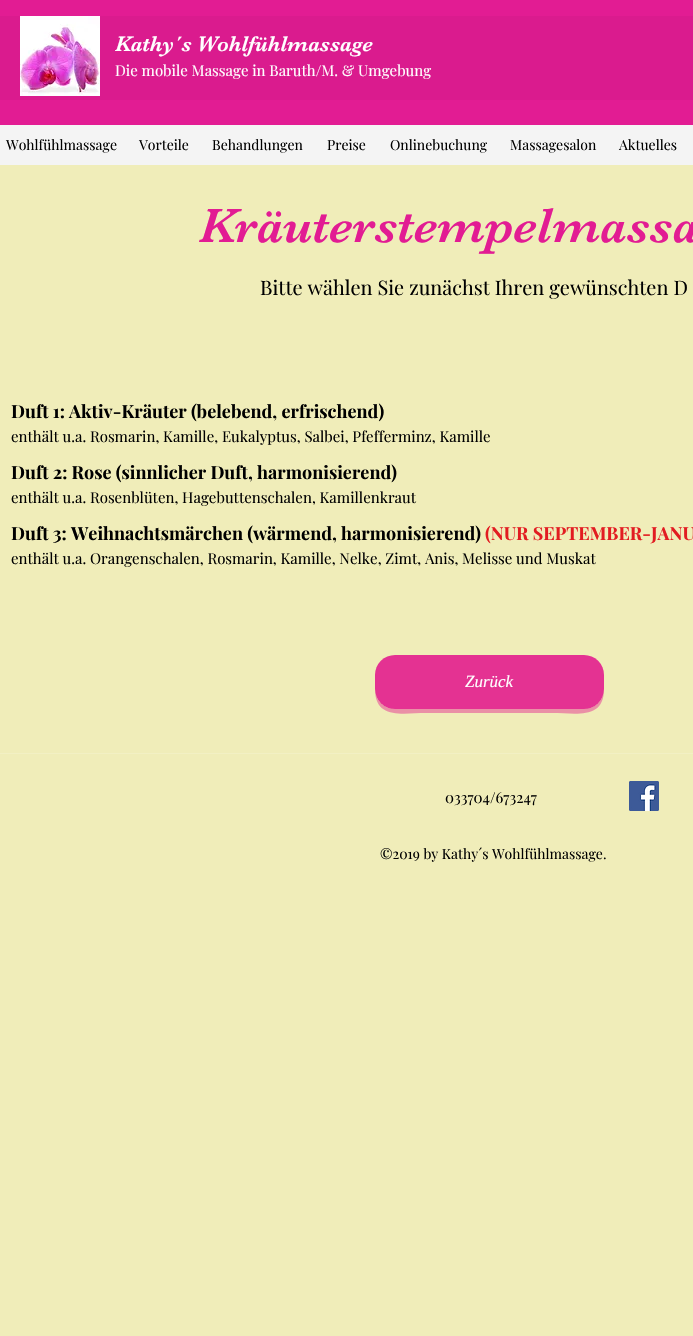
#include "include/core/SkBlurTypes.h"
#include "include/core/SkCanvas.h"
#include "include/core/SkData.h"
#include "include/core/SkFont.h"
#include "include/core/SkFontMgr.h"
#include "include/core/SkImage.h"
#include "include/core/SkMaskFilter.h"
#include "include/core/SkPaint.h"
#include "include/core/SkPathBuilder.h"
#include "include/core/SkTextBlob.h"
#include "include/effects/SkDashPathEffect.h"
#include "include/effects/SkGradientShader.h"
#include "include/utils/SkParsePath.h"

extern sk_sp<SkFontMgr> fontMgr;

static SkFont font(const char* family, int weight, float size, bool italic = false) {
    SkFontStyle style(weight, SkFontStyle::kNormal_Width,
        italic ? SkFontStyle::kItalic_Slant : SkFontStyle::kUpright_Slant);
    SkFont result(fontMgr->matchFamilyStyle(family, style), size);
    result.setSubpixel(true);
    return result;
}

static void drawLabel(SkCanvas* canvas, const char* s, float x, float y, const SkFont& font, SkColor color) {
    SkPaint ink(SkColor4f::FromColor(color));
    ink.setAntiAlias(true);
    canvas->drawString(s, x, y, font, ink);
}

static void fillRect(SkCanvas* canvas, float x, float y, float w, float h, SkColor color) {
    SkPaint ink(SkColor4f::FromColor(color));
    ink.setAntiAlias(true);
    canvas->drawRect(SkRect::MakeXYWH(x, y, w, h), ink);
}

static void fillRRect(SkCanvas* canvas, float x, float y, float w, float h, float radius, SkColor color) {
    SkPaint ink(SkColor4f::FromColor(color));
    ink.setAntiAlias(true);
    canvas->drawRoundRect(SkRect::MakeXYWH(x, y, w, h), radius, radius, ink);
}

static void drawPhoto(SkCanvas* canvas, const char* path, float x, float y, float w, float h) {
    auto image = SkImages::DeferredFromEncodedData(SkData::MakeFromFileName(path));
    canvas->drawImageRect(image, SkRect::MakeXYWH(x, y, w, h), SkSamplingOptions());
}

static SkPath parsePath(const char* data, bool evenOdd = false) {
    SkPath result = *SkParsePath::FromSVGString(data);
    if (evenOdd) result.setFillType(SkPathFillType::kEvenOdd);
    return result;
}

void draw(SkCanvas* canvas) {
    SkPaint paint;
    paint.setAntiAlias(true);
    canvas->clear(0xFFF0EDB9);
    fillRect(canvas, 0, 0, 693, 125, 0xFFE21C93);
    fillRect(canvas, 0, 16, 693, 84, 0xFFDA1B8E);
    drawPhoto(canvas, "assets/img1.png", 20, 16, 80, 80);
    SkFont font1 = font("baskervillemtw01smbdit", 400, 22);
    drawLabel(canvas, "Kathy´s Wohlfühlmassage", 115, 51, font1, 0xFFFFFFFF);
    SkFont font2 = font("Playfair Display", 400, 15);
    drawLabel(canvas, "Die mobile Massage in Baruth/M. & Umgebung", 115, 76, font2, 0xFFFFFFFF);
    fillRect(canvas, 0, 125, 693, 40, 0xFFF4F4F4);
    SkFont font3 = font("Playfair Display", 400, 14);
    drawLabel(canvas, "Wohlfühlmassage", 6, 150, font3, 0xFF000000);
    drawLabel(canvas, "Vorteile", 139, 150, font3, 0xFF000000);
    drawLabel(canvas, "Behandlungen", 212, 150, font3, 0xFF000000);
    drawLabel(canvas, "Preise", 327, 150, font3, 0xFF000000);
    drawLabel(canvas, "Onlinebuchung", 390, 150, font3, 0xFF000000);
    drawLabel(canvas, "Massagesalon", 510, 150, font3, 0xFF000000);
    drawLabel(canvas, "Aktuelles", 619, 150, font3, 0xFF000000);
    SkFont font4 = font("baskervillemtw01smbdit", 400, 50);
    drawLabel(canvas, "Kräuterstempelmassa", 199, 242, font4, 0xFFE21C93);
    SkFont font5 = font("Playfair Display", 400, 20);
    drawLabel(canvas, "Bitte wählen Sie zunächst Ihren gewünschten D", 260, 295, font5, 0xFF000000);
    SkFont font6 = font("Playfair Display", 700, 18);
    drawLabel(canvas, "Duft 1: Aktiv-Kräuter (belebend, erfrischend)", 11, 418, font6, 0xFF000000);
    drawLabel(canvas, "enthält u.a. Rosmarin, Kamille, Eukalyptus, Salbei, Pfefferminz, Kamille", 11, 442, font2, 0xFF000000);
    drawLabel(canvas, "Duft 2: Rose (sinnlicher Duft, harmonisierend)", 11, 479, font6, 0xFF000000);
    drawLabel(canvas, "enthält u.a. Rosenblüten, Hagebuttenschalen, Kamillenkraut", 11, 503, font2, 0xFF000000);
    drawLabel(canvas, "Duft 3: Weihnachtsmärchen (wärmend, harmonisierend)", 11, 540, font6, 0xFF000000);
    drawLabel(canvas, "(NUR SEPTEMBER-JANU", 485, 540, font6, 0xFFE21C21);
    drawLabel(canvas, "enthält u.a. Orangenschalen, Rosmarin, Kamille, Nelke, Zimt, Anis, Melisse und Muskat", 11, 564, font2, 0xFF000000);
    paint.setColor(0xFFEA90A6);
    canvas->drawPath(parsePath("M375 689C375 720 403 713 426 713H552C576 713 604 720 604 689C604 700 595 709 584 709H395C384 709 375 700 375 689Z"), paint);
    fillRRect(canvas, 375, 655, 229, 54, 20, 0xFFE43292);
    SkFont font7 = font("Liberation Serif", 400, 17, true);
    drawLabel(canvas, "Zurück", 465, 687, font7, 0xFFFFFFFF);
    fillRect(canvas, 0, 753, 693, 1, 0xFFF2F0C4);
    drawLabel(canvas, "033704/673247", 445, 803, font2, 0xFF000000);
    drawPhoto(canvas, "assets/img2.png", 629, 781, 30, 30);
    drawLabel(canvas, "©2019 by Kathy´s Wohlfühlmassage.", 380, 859, font3, 0xFF000000);
}
